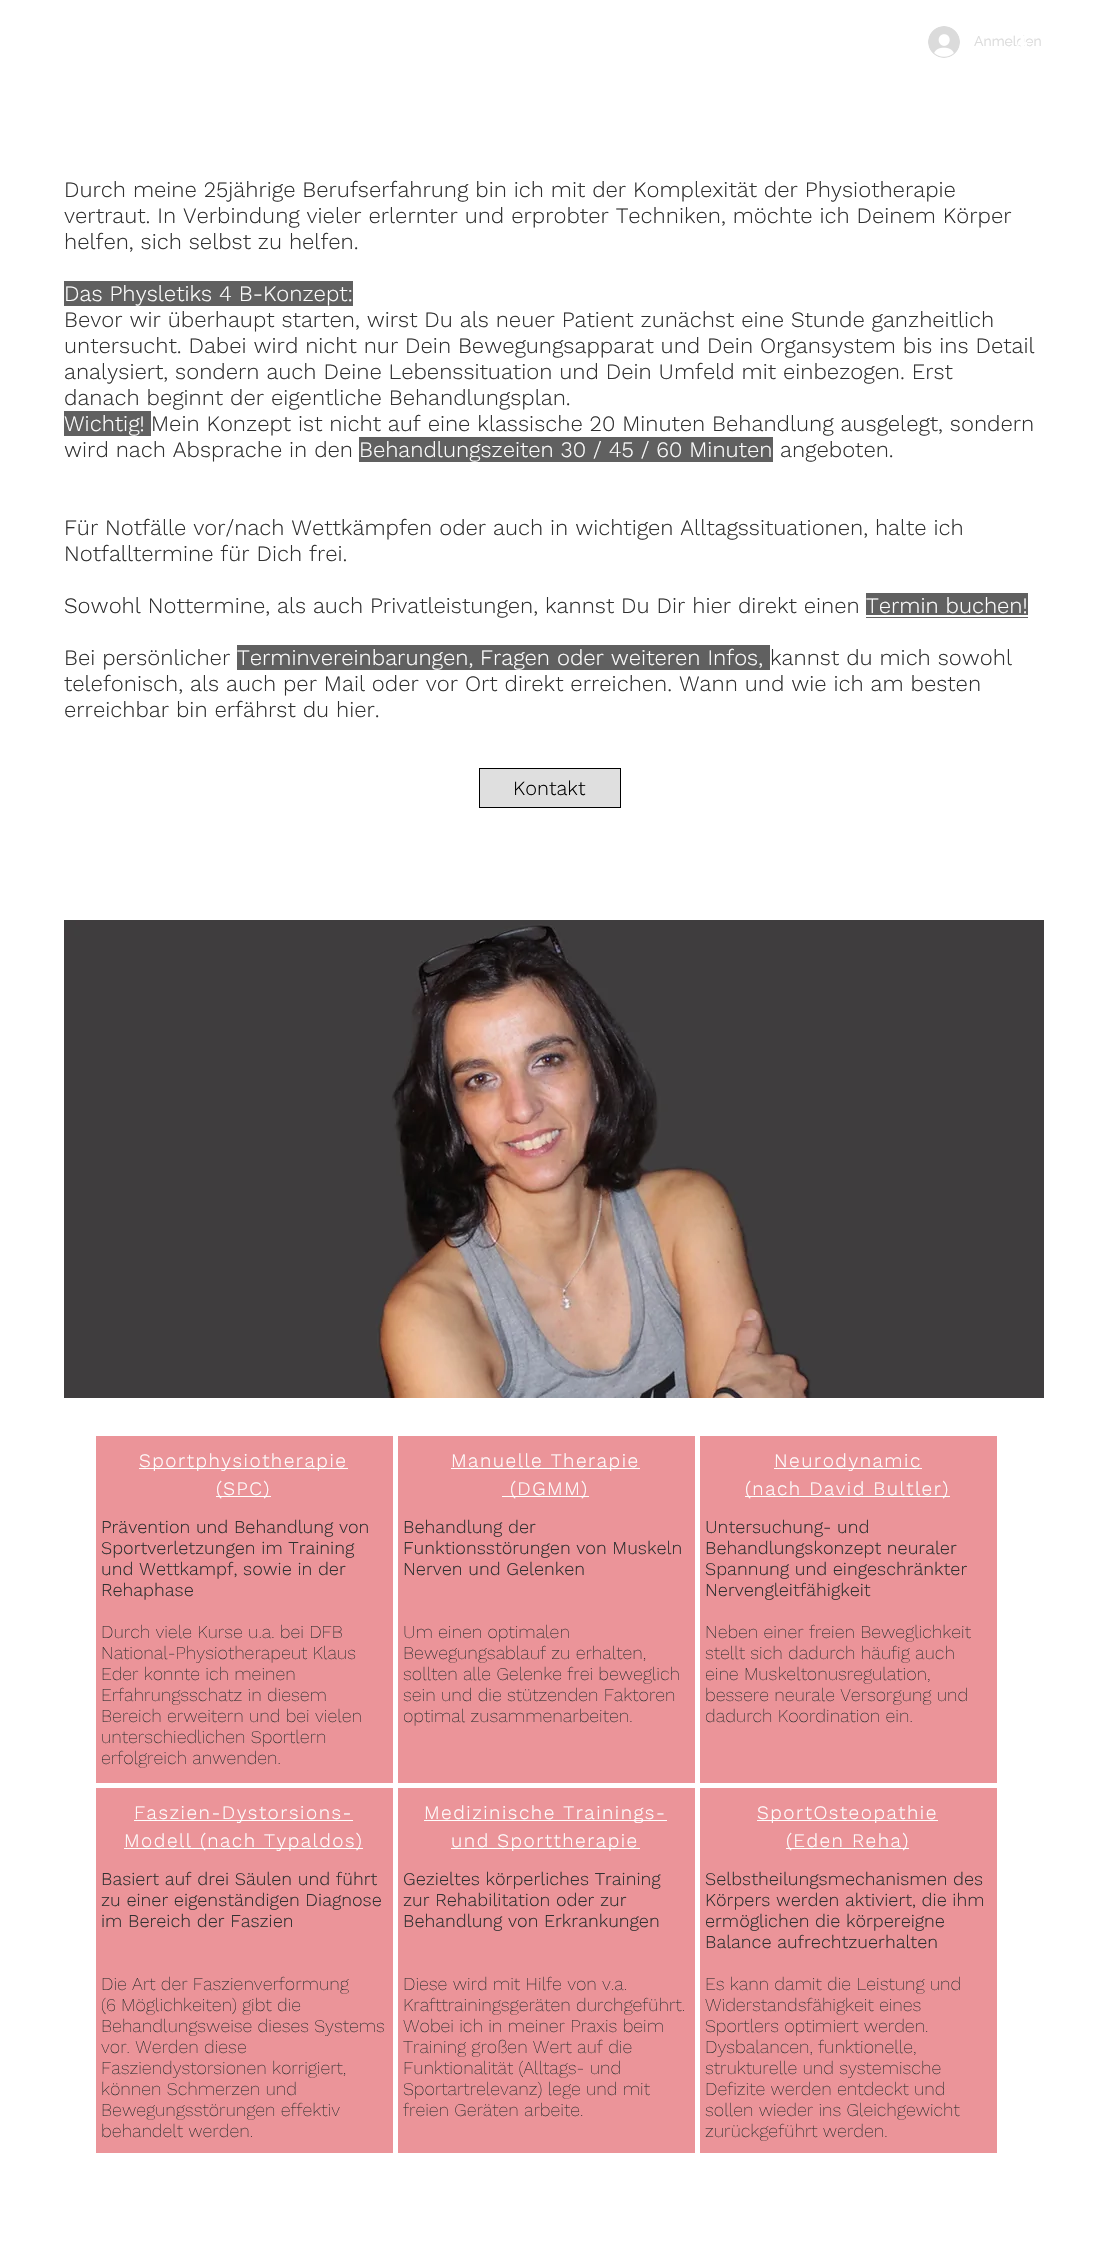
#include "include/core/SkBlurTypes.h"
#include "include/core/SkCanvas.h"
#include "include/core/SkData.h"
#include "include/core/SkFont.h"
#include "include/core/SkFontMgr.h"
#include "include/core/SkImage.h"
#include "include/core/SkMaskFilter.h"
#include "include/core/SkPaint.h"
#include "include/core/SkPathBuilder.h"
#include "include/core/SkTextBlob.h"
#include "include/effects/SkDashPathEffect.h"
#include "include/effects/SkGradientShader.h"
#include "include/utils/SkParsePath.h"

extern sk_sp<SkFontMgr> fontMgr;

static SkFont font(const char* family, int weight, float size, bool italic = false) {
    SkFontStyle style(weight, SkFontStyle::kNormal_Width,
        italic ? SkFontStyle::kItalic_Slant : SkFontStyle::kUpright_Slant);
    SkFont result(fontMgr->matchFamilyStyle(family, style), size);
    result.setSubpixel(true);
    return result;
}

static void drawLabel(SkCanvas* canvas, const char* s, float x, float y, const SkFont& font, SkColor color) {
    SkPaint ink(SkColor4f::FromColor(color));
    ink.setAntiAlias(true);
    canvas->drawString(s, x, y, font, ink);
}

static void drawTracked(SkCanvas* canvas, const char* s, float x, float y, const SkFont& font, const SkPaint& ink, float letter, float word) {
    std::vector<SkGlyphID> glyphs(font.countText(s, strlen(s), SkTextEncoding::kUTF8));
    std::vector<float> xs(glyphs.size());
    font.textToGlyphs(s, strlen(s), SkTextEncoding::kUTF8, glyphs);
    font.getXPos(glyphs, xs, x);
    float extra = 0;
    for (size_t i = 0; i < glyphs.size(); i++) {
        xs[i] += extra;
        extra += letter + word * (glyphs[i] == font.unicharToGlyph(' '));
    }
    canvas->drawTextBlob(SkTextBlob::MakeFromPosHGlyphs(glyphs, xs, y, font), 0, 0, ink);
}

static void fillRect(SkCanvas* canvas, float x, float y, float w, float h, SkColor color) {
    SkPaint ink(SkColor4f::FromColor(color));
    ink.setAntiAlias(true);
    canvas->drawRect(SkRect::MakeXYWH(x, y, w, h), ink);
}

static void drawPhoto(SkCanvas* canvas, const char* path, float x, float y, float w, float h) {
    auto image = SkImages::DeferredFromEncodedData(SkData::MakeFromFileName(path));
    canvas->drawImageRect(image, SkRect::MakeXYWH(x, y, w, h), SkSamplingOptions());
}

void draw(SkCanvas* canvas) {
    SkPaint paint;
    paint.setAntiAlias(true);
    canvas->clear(0xFFFFFFFF);
    drawPhoto(canvas, "assets/img1.png", 928, 26, 32, 32);
    SkFont font1 = font("Raleway", 400, 14);
    drawLabel(canvas, "Anmelden", 974, 46, font1, 0xFFDBDBDB);
    drawPhoto(canvas, "assets/img2.png", 1017, 36, 11, 10);
    SkFont font2 = font("Work Sans", 300, 22);
    drawLabel(canvas, "Durch meine 25jährige Berufserfahrung bin ich mit der Komplexität der Physiotherapie", 64, 197, font2, 0xFF303030);
    drawLabel(canvas, "vertraut. In Verbindung vieler erlernter und erprobter Techniken, möchte ich Deinem Körper", 64, 223, font2, 0xFF303030);
    drawLabel(canvas, "helfen, sich selbst zu helfen.", 64, 249, font2, 0xFF303030);
    fillRect(canvas, 64, 281, 289, 25, 0xFF606060);
    drawLabel(canvas, "Das Physletiks 4 B-Konzept:", 64, 301, font2, 0xFFFFFFFF);
    drawLabel(canvas, "Bevor wir überhaupt starten, wirst Du als neuer Patient zunächst eine Stunde ganzheitlich", 64, 327, font2, 0xFF303030);
    drawLabel(canvas, "untersucht. Dabei wird nicht nur Dein Bewegungsapparat und Dein Organsystem bis ins Detail", 64, 353, font2, 0xFF303030);
    drawLabel(canvas, "analysiert, sondern auch Deine Lebenssituation und Dein Umfeld mit einbezogen. Erst", 64, 379, font2, 0xFF303030);
    drawLabel(canvas, "danach beginnt der eigentliche Behandlungsplan.", 64, 405, font2, 0xFF303030);
    fillRect(canvas, 64, 411, 87, 25, 0xFF606060);
    drawLabel(canvas, "Wichtig!", 64, 431, font2, 0xFFFFFFFF);
    drawLabel(canvas, "Mein Konzept ist nicht auf eine klassische 20 Minuten Behandlung ausgelegt, sondern", 151, 431, font2, 0xFF303030);
    drawLabel(canvas, "wird nach Absprache in den", 64, 457, font2, 0xFF303030);
    fillRect(canvas, 359, 437, 414, 25, 0xFF606060);
    drawLabel(canvas, "Behandlungszeiten 30 / 45 / 60 Minuten", 359, 457, font2, 0xFFFFFFFF);
    drawLabel(canvas, "angeboten.", 780, 457, font2, 0xFF303030);
    drawLabel(canvas, "Für Notfälle vor/nach Wettkämpfen oder auch in wichtigen Alltagssituationen, halte ich", 64, 535, font2, 0xFF303030);
    drawLabel(canvas, "Notfalltermine für Dich frei.", 64, 561, font2, 0xFF303030);
    drawLabel(canvas, "Sowohl Nottermine, als auch Privatleistungen, kannst Du Dir hier direkt einen", 64, 613, font2, 0xFF303030);
    fillRect(canvas, 866, 593, 162, 25, 0xFF606060);
    drawLabel(canvas, "Termin buchen!", 866, 613, font2, 0xFFFFFFFF);
    fillRect(canvas, 866, 615, 162, 2, 0xFFFFFFFF);
    drawLabel(canvas, "Bei persönlicher", 64, 665, font2, 0xFF303030);
    fillRect(canvas, 237, 645, 533, 25, 0xFF606060);
    drawLabel(canvas, "Terminvereinbarungen, Fragen oder weiteren Infos,", 237, 665, font2, 0xFFFFFFFF);
    drawLabel(canvas, "kannst du mich sowohl", 770, 665, font2, 0xFF303030);
    drawLabel(canvas, "telefonisch, als auch per Mail oder vor Ort direkt erreichen. Wann und wie ich am besten", 64, 691, font2, 0xFF303030);
    drawLabel(canvas, "erreichbar bin erfährst du hier.", 64, 717, font2, 0xFF303030);
    paint.setColor(0xFFDFDFDF);
    canvas->drawRect(SkRect::MakeXYWH(479.5f, 768.5f, 141, 39), paint);
    paint.setStroke(true);
    paint.setStrokeWidth(1);
    paint.setColor(0xFF000000);
    canvas->drawRect(SkRect::MakeXYWH(479.5f, 768.5f, 141, 39), paint);
    SkFont font3 = font("Work Sans", 300, 20);
    drawLabel(canvas, "Kontakt", 513, 795, font3, 0xFF000000);
    drawPhoto(canvas, "assets/img3.png", 64, 920, 980, 478);
    fillRect(canvas, 96, 1436, 297, 347, 0xFFEB9499);
    fillRect(canvas, 139, 1468, 209, 1, 0xFFFFFFFF);
    SkFont font4 = font("Work Sans", 300, 19);
    paint.setStroke(false);
    paint.setColor(0xFFFFFFFF);
    drawTracked(canvas, "Sportphysiotherapie", 139, 1467, font4, paint, 1.5f, 0);
    fillRect(canvas, 216, 1496, 55, 1, 0xFFFFFFFF);
    drawTracked(canvas, "(SPC)", 216, 1495, font4, paint, 1.5f, 0);
    SkFont font5 = font("Work Sans", 300, 18);
    drawLabel(canvas, "Prävention und Behandlung von", 101, 1533, font5, 0xFF303030);
    drawLabel(canvas, "Sportverletzungen im Training", 101, 1554, font5, 0xFF303030);
    drawLabel(canvas, "und Wettkampf, sowie in der", 101, 1575, font5, 0xFF303030);
    drawLabel(canvas, "Rehaphase", 101, 1596, font5, 0xFF303030);
    SkFont font6 = font("Work Sans", 200, 18);
    drawLabel(canvas, "Durch viele Kurse u.a. bei DFB", 101, 1638, font6, 0xFF303030);
    drawLabel(canvas, "National-Physiotherapeut Klaus", 101, 1659, font6, 0xFF303030);
    drawLabel(canvas, "Eder konnte ich meinen", 101, 1680, font6, 0xFF303030);
    drawLabel(canvas, "Erfahrungsschatz in diesem", 101, 1701, font6, 0xFF303030);
    drawLabel(canvas, "Bereich erweitern und bei vielen", 101, 1722, font6, 0xFF303030);
    drawLabel(canvas, "unterschiedlichen Sportlern", 101, 1743, font6, 0xFF303030);
    drawLabel(canvas, "erfolgreich anwenden.", 101, 1764, font6, 0xFF303030);
    fillRect(canvas, 96, 1788, 297, 365, 0xFFEB9499);
    fillRect(canvas, 134, 1820, 219, 1, 0xFFFFFFFF);
    drawTracked(canvas, "Faszien-Dystorsions-", 134, 1819, font4, paint, 1.5f, 0);
    fillRect(canvas, 124, 1848, 239, 1, 0xFFFFFFFF);
    drawTracked(canvas, "Modell (nach Typaldos)", 124, 1847, font4, paint, 1.5f, 0);
    drawLabel(canvas, "Basiert auf drei Säulen und führt", 101, 1885, font5, 0xFF303030);
    drawLabel(canvas, "zu einer eigenständigen Diagnose", 101, 1906, font5, 0xFF303030);
    drawLabel(canvas, "im Bereich der Faszien", 101, 1927, font5, 0xFF303030);
    drawLabel(canvas, "Die Art der Faszienverformung", 101, 1990, font6, 0xFF303030);
    drawLabel(canvas, "(6 Möglichkeiten) gibt die", 101, 2011, font6, 0xFF303030);
    drawLabel(canvas, "Behandlungsweise dieses Systems", 101, 2032, font6, 0xFF303030);
    drawLabel(canvas, "vor. Werden diese", 101, 2053, font6, 0xFF303030);
    drawLabel(canvas, "Fasziendystorsionen korrigiert,", 101, 2074, font6, 0xFF303030);
    drawLabel(canvas, "können Schmerzen und", 101, 2095, font6, 0xFF303030);
    drawLabel(canvas, "Bewegungsstörungen effektiv", 101, 2116, font6, 0xFF303030);
    drawLabel(canvas, "behandelt werden.", 101, 2137, font6, 0xFF303030);
    fillRect(canvas, 398, 1436, 297, 347, 0xFFEB9499);
    fillRect(canvas, 451, 1468, 189, 1, 0xFFFFFFFF);
    drawTracked(canvas, "Manuelle Therapie", 451, 1467, font4, paint, 1.5f, 0);
    fillRect(canvas, 502, 1496, 87, 1, 0xFFFFFFFF);
    drawTracked(canvas, "(DGMM)", 510, 1495, font4, paint, 1.5f, 0);
    drawLabel(canvas, "Behandlung der", 403, 1533, font5, 0xFF303030);
    drawLabel(canvas, "Funktionsstörungen von Muskeln", 403, 1554, font5, 0xFF303030);
    drawLabel(canvas, "Nerven und Gelenken", 403, 1575, font5, 0xFF303030);
    drawLabel(canvas, "Um einen optimalen", 403, 1638, font6, 0xFF303030);
    drawLabel(canvas, "Bewegungsablauf zu erhalten,", 403, 1659, font6, 0xFF303030);
    drawLabel(canvas, "sollten alle Gelenke frei beweglich", 403, 1680, font6, 0xFF303030);
    drawLabel(canvas, "sein und die stützenden Faktoren", 403, 1701, font6, 0xFF303030);
    drawLabel(canvas, "optimal zusammenarbeiten.", 403, 1722, font6, 0xFF303030);
    fillRect(canvas, 398, 1788, 297, 365, 0xFFEB9499);
    fillRect(canvas, 424, 1820, 243, 1, 0xFFFFFFFF);
    drawTracked(canvas, "Medizinische Trainings-", 424, 1819, font4, paint, 1.5f, 0);
    fillRect(canvas, 451, 1848, 189, 1, 0xFFFFFFFF);
    drawTracked(canvas, "und Sporttherapie", 451, 1847, font4, paint, 1.5f, 0);
    drawLabel(canvas, "Gezieltes körperliches Training", 403, 1885, font5, 0xFF303030);
    drawLabel(canvas, "zur Rehabilitation oder zur", 403, 1906, font5, 0xFF303030);
    drawLabel(canvas, "Behandlung von Erkrankungen", 403, 1927, font5, 0xFF303030);
    drawLabel(canvas, "Diese wird mit Hilfe von v.a.", 403, 1990, font6, 0xFF303030);
    drawLabel(canvas, "Krafttrainingsgeräten durchgeführt.", 403, 2011, font6, 0xFF303030);
    drawLabel(canvas, "Wobei ich in meiner Praxis beim", 403, 2032, font6, 0xFF303030);
    drawLabel(canvas, "Training großen Wert auf die", 403, 2053, font6, 0xFF303030);
    drawLabel(canvas, "Funktionalität (Alltags- und", 403, 2074, font6, 0xFF303030);
    drawLabel(canvas, "Sportartrelevanz) lege und mit", 403, 2095, font6, 0xFF303030);
    drawLabel(canvas, "freien Geräten arbeite.", 403, 2116, font6, 0xFF303030);
    fillRect(canvas, 700, 1436, 297, 347, 0xFFEB9499);
    fillRect(canvas, 774, 1468, 148, 1, 0xFFFFFFFF);
    drawTracked(canvas, "Neurodynamic", 774, 1467, font4, paint, 1.5f, 0);
    fillRect(canvas, 745, 1496, 205, 1, 0xFFFFFFFF);
    drawTracked(canvas, "(nach David Bultler)", 745, 1495, font4, paint, 1.5f, 0);
    drawLabel(canvas, "Untersuchung- und", 705, 1533, font5, 0xFF303030);
    drawLabel(canvas, "Behandlungskonzept neuraler", 705, 1554, font5, 0xFF303030);
    drawLabel(canvas, "Spannung und eingeschränkter", 705, 1575, font5, 0xFF303030);
    drawLabel(canvas, "Nervengleitfähigkeit", 705, 1596, font5, 0xFF303030);
    drawLabel(canvas, "Neben einer freien Beweglichkeit", 705, 1638, font6, 0xFF303030);
    drawLabel(canvas, "stellt sich dadurch häufig auch", 705, 1659, font6, 0xFF303030);
    drawLabel(canvas, "eine Muskeltonusregulation,", 705, 1680, font6, 0xFF303030);
    drawLabel(canvas, "bessere neurale Versorgung und", 705, 1701, font6, 0xFF303030);
    drawLabel(canvas, "dadurch Koordination ein.", 705, 1722, font6, 0xFF303030);
    fillRect(canvas, 700, 1788, 297, 365, 0xFFEB9499);
    fillRect(canvas, 757, 1820, 181, 1, 0xFFFFFFFF);
    drawTracked(canvas, "SportOsteopathie", 757, 1819, font4, paint, 1.5f, 0);
    fillRect(canvas, 786, 1848, 123, 1, 0xFFFFFFFF);
    drawTracked(canvas, "(Eden Reha)", 786, 1847, font4, paint, 1.5f, 0);
    drawLabel(canvas, "Selbstheilungsmechanismen des", 705, 1885, font5, 0xFF303030);
    drawLabel(canvas, "Körpers werden aktiviert, die ihm", 705, 1906, font5, 0xFF303030);
    drawLabel(canvas, "ermöglichen die körpereigne", 705, 1927, font5, 0xFF303030);
    drawLabel(canvas, "Balance aufrechtzuerhalten", 705, 1948, font5, 0xFF303030);
    drawLabel(canvas, "Es kann damit die Leistung und", 705, 1990, font6, 0xFF303030);
    drawLabel(canvas, "Widerstandsfähigkeit eines", 705, 2011, font6, 0xFF303030);
    drawLabel(canvas, "Sportlers optimiert werden.", 705, 2032, font6, 0xFF303030);
    drawLabel(canvas, "Dysbalancen, funktionelle,", 705, 2053, font6, 0xFF303030);
    drawLabel(canvas, "strukturelle und systemische", 705, 2074, font6, 0xFF303030);
    drawLabel(canvas, "Defizite werden entdeckt und", 705, 2095, font6, 0xFF303030);
    drawLabel(canvas, "sollen wieder ins Gleichgewicht", 705, 2116, font6, 0xFF303030);
    drawLabel(canvas, "zurückgeführt werden.", 705, 2137, font6, 0xFF303030);
}
